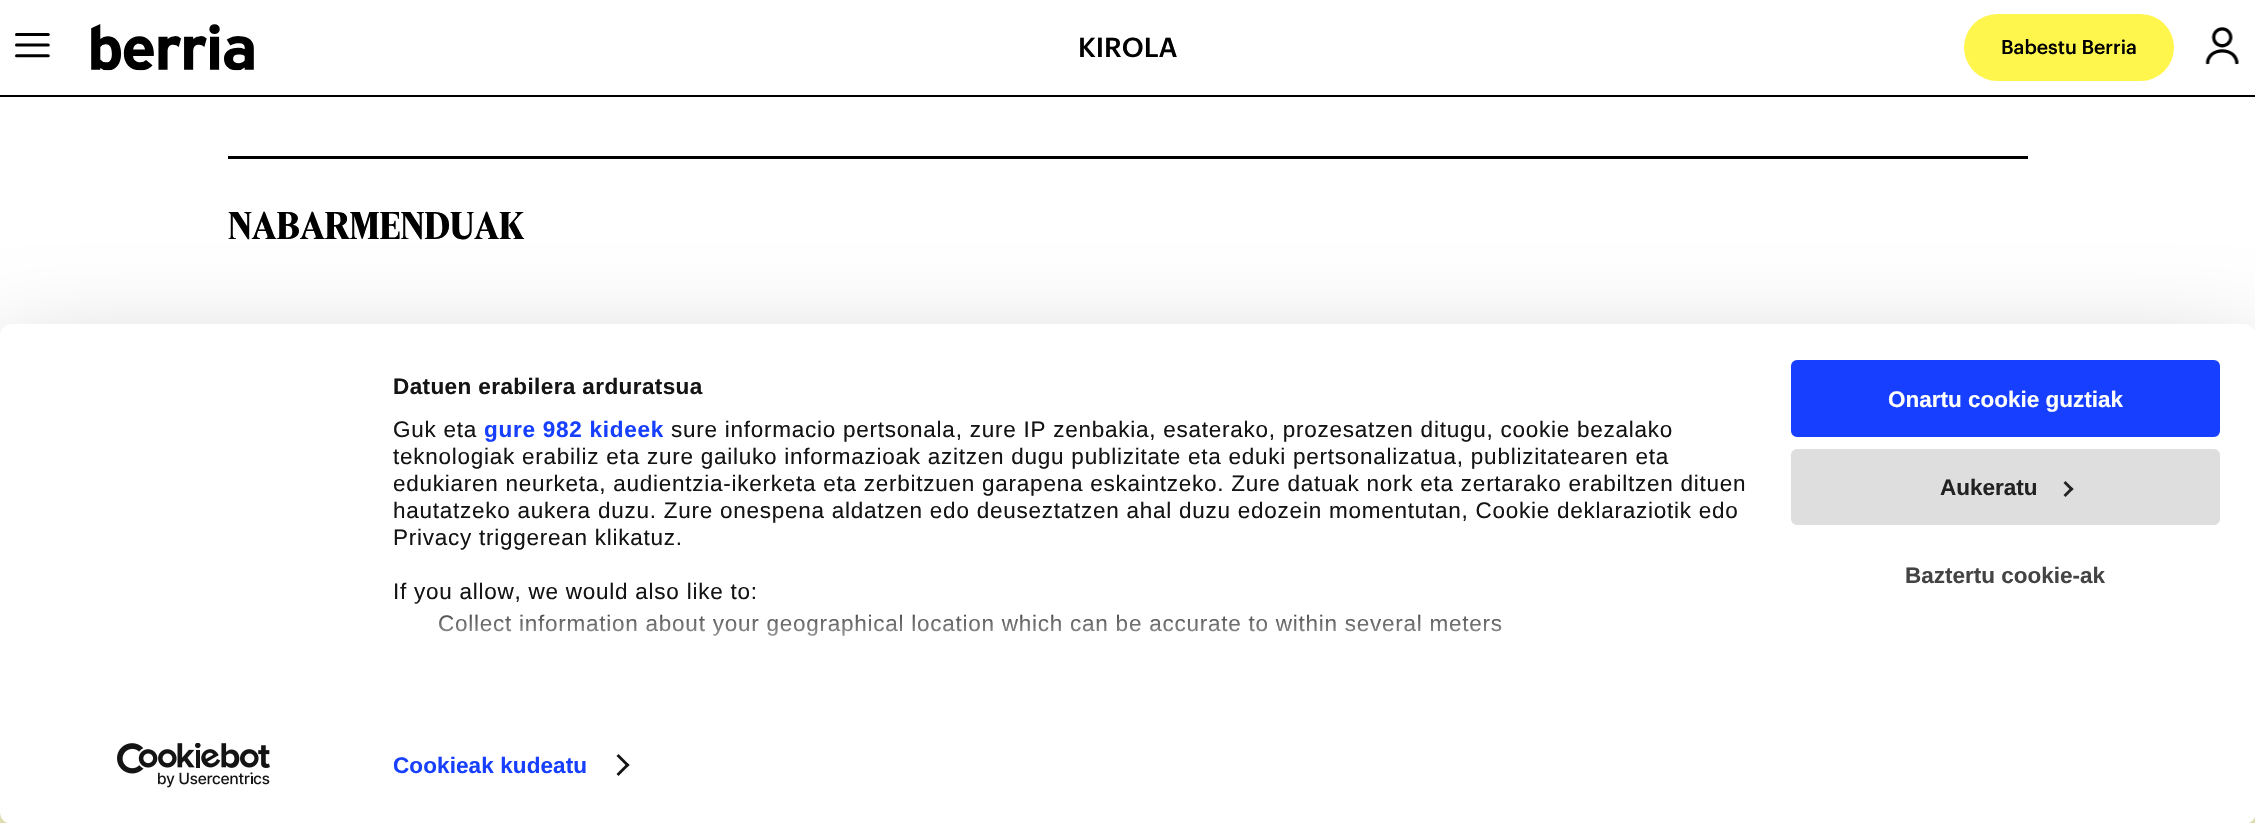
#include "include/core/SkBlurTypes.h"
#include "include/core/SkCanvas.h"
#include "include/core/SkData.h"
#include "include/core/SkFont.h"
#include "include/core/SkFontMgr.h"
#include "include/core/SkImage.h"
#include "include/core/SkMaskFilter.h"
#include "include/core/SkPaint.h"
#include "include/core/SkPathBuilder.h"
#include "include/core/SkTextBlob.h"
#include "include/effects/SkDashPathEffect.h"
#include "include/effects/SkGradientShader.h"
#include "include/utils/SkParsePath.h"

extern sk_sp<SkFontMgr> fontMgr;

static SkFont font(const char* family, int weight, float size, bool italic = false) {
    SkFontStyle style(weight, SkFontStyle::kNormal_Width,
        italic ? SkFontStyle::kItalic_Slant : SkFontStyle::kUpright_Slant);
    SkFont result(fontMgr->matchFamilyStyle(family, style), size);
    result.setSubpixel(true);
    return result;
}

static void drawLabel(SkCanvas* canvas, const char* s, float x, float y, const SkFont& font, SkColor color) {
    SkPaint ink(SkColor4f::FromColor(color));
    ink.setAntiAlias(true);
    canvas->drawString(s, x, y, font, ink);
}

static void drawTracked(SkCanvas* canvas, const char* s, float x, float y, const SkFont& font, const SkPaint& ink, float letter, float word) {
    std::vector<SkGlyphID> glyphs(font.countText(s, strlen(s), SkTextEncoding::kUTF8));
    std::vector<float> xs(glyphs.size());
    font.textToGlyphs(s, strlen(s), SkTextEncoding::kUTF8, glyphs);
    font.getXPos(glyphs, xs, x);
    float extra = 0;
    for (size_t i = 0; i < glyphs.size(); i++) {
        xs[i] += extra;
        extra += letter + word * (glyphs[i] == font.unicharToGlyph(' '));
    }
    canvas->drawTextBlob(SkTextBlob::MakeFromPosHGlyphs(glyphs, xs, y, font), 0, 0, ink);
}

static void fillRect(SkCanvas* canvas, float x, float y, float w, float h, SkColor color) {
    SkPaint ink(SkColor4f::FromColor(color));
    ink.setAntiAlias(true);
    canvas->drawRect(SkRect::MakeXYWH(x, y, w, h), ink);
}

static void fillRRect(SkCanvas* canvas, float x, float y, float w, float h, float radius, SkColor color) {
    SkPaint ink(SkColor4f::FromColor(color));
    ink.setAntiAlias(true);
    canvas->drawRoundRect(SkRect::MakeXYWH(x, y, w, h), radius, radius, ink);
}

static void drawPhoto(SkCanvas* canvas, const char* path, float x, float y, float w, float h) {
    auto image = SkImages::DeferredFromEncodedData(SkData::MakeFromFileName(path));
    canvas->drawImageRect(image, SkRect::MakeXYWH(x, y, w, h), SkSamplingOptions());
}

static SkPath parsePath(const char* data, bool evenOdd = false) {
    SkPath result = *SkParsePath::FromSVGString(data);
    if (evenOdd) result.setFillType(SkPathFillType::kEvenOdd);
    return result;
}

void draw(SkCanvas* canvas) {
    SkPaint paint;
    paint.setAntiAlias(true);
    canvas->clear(0xFFFFFFFF);
    SkFont font1 = font("Graphik", 500, 27);
    drawLabel(canvas, "KIROLA", 1078, 57, font1, 0xFF000000);
    fillRect(canvas, 0, 95, 2255, 2, 0xFF000000);
    drawPhoto(canvas, "assets/img1.png", 15, 33, 35, 25);
    drawPhoto(canvas, "assets/img2.png", 91, 24, 163, 47);
    fillRRect(canvas, 1964, 14, 210, 67, 33.5f, 0xFFFFF64D);
    SkFont font2 = font("Graphik", 500, 19.5f);
    drawLabel(canvas, "Babestu Berria", 2001, 54, font2, 0xFF000000);
    drawPhoto(canvas, "assets/img3.png", 2205, 27, 34, 38);
    fillRect(canvas, 228, 156, 1800, 3, 0xFF000000);
    SkFont font3 = font("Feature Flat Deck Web", 700, 36);
    drawLabel(canvas, "NABARMENDUAK", 228, 239, font3, 0xFF000000);
    fillRect(canvas, 0, 812, 2255, 11, 0xFFFFFDC9);
    paint.setColor(0x4D000000);
    paint.setMaskFilter(SkMaskFilter::MakeBlur(kNormal_SkBlurStyle, 52.5f));
    canvas->drawRoundRect(SkRect::MakeXYWH(0, 369, 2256, 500), 12, 12, paint);
    paint.setMaskFilter(nullptr);
    fillRRect(canvas, 0, 324, 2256, 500, 12, 0xFFFFFFFF);
    SkFont font4 = font("Liberation Sans", 700, 22.5f);
    paint.setColor(0xFF141414);
    drawTracked(canvas, "Datuen erabilera arduratsua", 393, 394, font4, paint, 0.4f, 0);
    SkFont font5 = font("Liberation Sans", 400, 22.5f);
    drawTracked(canvas, "Guk eta", 393, 437, font5, paint, 0.75f, 0);
    paint.setColor(0xFF173FFF);
    drawTracked(canvas, "gure 982 kideek", 484, 437, font4, paint, 0.75f, 0);
    paint.setColor(0xFF141414);
    drawTracked(canvas, "sure informacio pertsonala, zure IP zenbakia, esaterako, prozesatzen ditugu, cookie bezalako", 671, 437, font5, paint, 0.75f, 0);
    drawTracked(canvas, "teknologiak erabiliz eta zure gailuko informazioak azitzen dugu publizitate eta eduki pertsonalizatua, publizitatearen eta", 393, 464, font5, paint, 0.75f, 0);
    drawTracked(canvas, "edukiaren neurketa, audientzia-ikerketa eta zerbitzuen garapena eskaintzeko. Zure datuak nork eta zertarako erabiltzen dituen", 393, 491, font5, paint, 0.75f, 0);
    drawTracked(canvas, "hautatzeko aukera duzu. Zure onespena aldatzen edo deuseztatzen ahal duzu edozein momentutan, Cookie deklaraziotik edo", 393, 518, font5, paint, 0.75f, 0);
    drawTracked(canvas, "Privacy triggerean klikatuz.", 393, 545, font5, paint, 0.75f, 0);
    drawTracked(canvas, "If you allow, we would also like to:", 393, 599, font5, paint, 0.75f, 0);
    drawTracked(canvas, "Collect information about your geographical location which can be accurate to within several meters", 438, 631, font5, paint, 0.75f, 0);
    {
        const SkColor colors[] = {0xFFFFFFFF, 0xCCFFFFFF, 0x00FFFFFF};
        const float stops[] = {0, 0.5f, 1};
        const SkPoint ends[] = {{1073, 710}, {1073, 597}};
        paint.setShader(SkGradientShader::MakeLinear(ends, colors, stops, 3, SkTileMode::kClamp));
        paint.setAlpha(255);
    }
    canvas->drawRect(SkRect::MakeXYWH(415, 599, 1087, 37), paint);
    paint.setShader(nullptr);
    paint.setColor(0xFF173FFF);
    drawTracked(canvas, "Cookieak kudeatu", 393, 773, font4, paint, 0.1f, 0);
    paint.setColor(0xFF141414);
    canvas->drawPath(parsePath("M618.5 754L629.5 765L627.5 767L616.5 756Z"), paint);
    canvas->drawPath(parsePath("M627.5 763L629.5 765L618.5 776L616.5 774Z"), paint);
    paint.setColor(0xFF173FFF);
    canvas->drawRoundRect(SkRect::MakeXYWH(1792.5f, 361.5f, 426, 74), 4.5f, 4.5f, paint);
    paint.setStroke(true);
    paint.setStrokeWidth(3);
    canvas->drawRoundRect(SkRect::MakeXYWH(1792.5f, 361.5f, 426, 74), 4.5f, 4.5f, paint);
    drawLabel(canvas, "Onartu cookie guztiak", 1888, 407, font4, 0xFFFFFFFF);
    paint.setStroke(false);
    paint.setColor(0xFFDEDEDE);
    canvas->drawRoundRect(SkRect::MakeXYWH(1792.5f, 450.5f, 426, 73), 4.5f, 4.5f, paint);
    paint.setStroke(true);
    canvas->drawRoundRect(SkRect::MakeXYWH(1792.5f, 450.5f, 426, 73), 4.5f, 4.5f, paint);
    drawLabel(canvas, "Aukeratu", 1940, 495, font4, 0xFF222222);
    paint.setStroke(false);
    paint.setColor(0xFF222222);
    canvas->drawPath(parsePath("M2065.5 481L2073.5 489L2071.5 491L2063.5 483Z"), paint);
    canvas->drawPath(parsePath("M2071.5 487L2073.5 489L2065.5 497L2063.5 495Z"), paint);
    drawLabel(canvas, "Baztertu cookie-ak", 1905, 583, font4, 0xFF444444);
    drawPhoto(canvas, "assets/img4.png", 117, 743, 153, 45);
}
